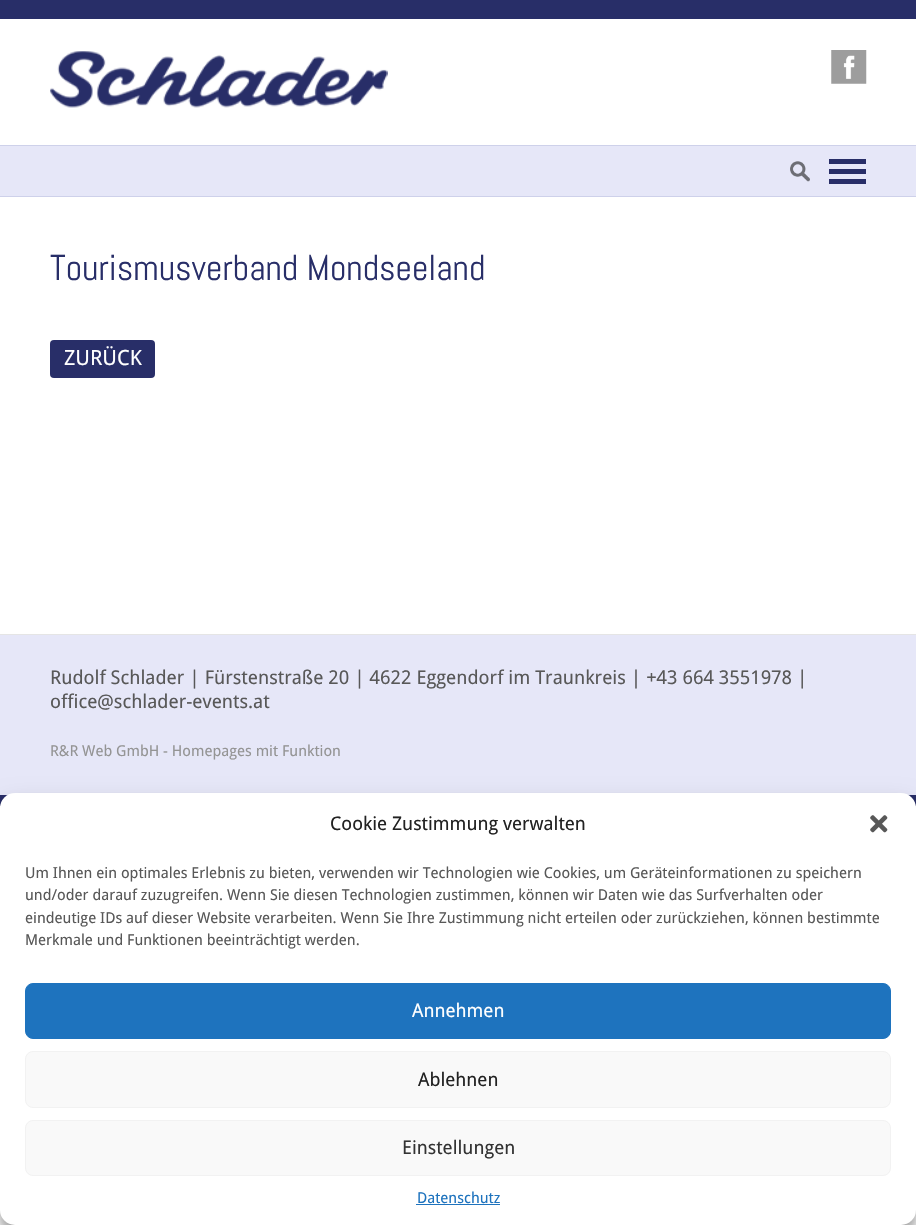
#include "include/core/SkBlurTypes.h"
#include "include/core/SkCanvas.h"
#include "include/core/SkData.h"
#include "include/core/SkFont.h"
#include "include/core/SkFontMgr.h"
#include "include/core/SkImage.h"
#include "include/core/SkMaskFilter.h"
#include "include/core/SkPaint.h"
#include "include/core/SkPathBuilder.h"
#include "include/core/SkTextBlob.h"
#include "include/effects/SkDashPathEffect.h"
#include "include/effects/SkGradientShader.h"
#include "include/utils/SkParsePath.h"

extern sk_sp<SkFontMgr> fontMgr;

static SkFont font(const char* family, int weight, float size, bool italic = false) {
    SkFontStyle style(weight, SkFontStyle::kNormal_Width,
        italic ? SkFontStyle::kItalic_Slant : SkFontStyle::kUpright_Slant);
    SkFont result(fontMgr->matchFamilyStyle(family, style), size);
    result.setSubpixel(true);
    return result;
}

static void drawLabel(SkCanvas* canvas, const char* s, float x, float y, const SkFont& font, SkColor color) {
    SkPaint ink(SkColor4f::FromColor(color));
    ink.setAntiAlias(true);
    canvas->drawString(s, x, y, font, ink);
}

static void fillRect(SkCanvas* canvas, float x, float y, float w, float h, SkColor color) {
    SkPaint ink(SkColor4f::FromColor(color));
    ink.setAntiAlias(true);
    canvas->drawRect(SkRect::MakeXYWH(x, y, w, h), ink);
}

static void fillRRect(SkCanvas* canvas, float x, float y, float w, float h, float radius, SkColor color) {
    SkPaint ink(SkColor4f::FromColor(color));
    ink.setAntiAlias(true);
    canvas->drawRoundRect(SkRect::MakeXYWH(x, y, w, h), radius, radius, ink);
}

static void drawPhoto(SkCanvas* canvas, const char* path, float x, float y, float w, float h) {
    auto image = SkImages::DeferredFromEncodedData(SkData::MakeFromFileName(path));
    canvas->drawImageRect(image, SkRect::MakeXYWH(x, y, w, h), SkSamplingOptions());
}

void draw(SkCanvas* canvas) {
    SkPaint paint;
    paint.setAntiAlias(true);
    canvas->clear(0xFFFFFFFF);
    fillRect(canvas, 0, 196, 916, 1, 0xFFCED1EA);
    fillRect(canvas, 0, 0, 916, 19, 0xFF282E68);
    drawPhoto(canvas, "assets/img1.png", 50, 51, 338, 57);
    drawPhoto(canvas, "assets/img2.png", 831, 50, 36, 34);
    fillRect(canvas, 0, 146, 916, 50, 0xFFE6E7F8);
    fillRect(canvas, 0, 145, 916, 1, 0xFFCED1EA);
    drawPhoto(canvas, "assets/img3.png", 790, 161, 20, 21);
    fillRect(canvas, 829, 159, 37, 5, 0xFF282E68);
    fillRect(canvas, 829, 179, 37, 5, 0xFF282E68);
    fillRect(canvas, 829, 169, 37, 5, 0xFF282E68);
    SkFont font1 = font("Abel", 400, 36);
    drawLabel(canvas, "Tourismusverband Mondseeland", 50, 280, font1, 0xFF282E68);
    fillRRect(canvas, 50, 340, 105, 38, 4, 0xFF282E68);
    SkFont font2 = font("Droid Sans", 400, 21);
    drawLabel(canvas, "ZURÜCK", 64, 365, font2, 0xFFFFFFFF);
    fillRect(canvas, 0, 635, 916, 160, 0xFFE6E7F8);
    fillRect(canvas, 0, 634, 916, 1, 0xFFE5E5E5);
    fillRect(canvas, 0, 795, 916, 11, 0xFF282E68);
    SkFont font3 = font("Droid Sans", 400, 19);
    drawLabel(canvas, "Rudolf Schlader | Fürstenstraße 20 | 4622 Eggendorf im Traunkreis | +43 664 3551978 |", 50, 684, font3, 0xFF585858);
    drawLabel(canvas, "office@schlader-events.at", 50, 708, font3, 0xFF585858);
    SkFont font4 = font("Droid Sans", 400, 15);
    drawLabel(canvas, "R&R Web GmbH - Homepages mit Funktion", 50, 756, font4, 0xFF949494);
    paint.setColor(0x3B000000);
    paint.setMaskFilter(SkMaskFilter::MakeBlur(kNormal_SkBlurStyle, 4));
    canvas->drawRoundRect(SkRect::MakeXYWH(0, 800, 916, 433), 15, 15, paint);
    paint.setMaskFilter(nullptr);
    paint.setColor(0x30000000);
    paint.setMaskFilter(SkMaskFilter::MakeBlur(kNormal_SkBlurStyle, 12.5f));
    canvas->drawRoundRect(SkRect::MakeXYWH(0, 805, 916, 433), 15, 15, paint);
    paint.setMaskFilter(nullptr);
    fillRRect(canvas, 0, 793, 916, 432, 15, 0xFFFFFFFF);
    SkFont font5 = font("Droid Sans", 400, 18.75f);
    drawLabel(canvas, "Cookie Zustimmung verwalten", 330, 830, font5, 0xFF222222);
    drawPhoto(canvas, "assets/img4.png", 870, 815, 18, 18);
    drawLabel(canvas, "Um Ihnen ein optimales Erlebnis zu bieten, verwenden wir Technologien wie Cookies, um Geräteinformationen zu speichern", 25, 878, font4, 0xFF585858);
    drawLabel(canvas, "und/oder darauf zuzugreifen. Wenn Sie diesen Technologien zustimmen, können wir Daten wie das Surfverhalten oder", 25, 900, font4, 0xFF585858);
    drawLabel(canvas, "eindeutige IDs auf dieser Website verarbeiten. Wenn Sie Ihre Zustimmung nicht erteilen oder zurückziehen, können bestimmte", 25, 923, font4, 0xFF585858);
    drawLabel(canvas, "Merkmale und Funktionen beeinträchtigt werden.", 25, 945, font4, 0xFF585858);
    paint.setColor(0xFF1E73BE);
    canvas->drawRoundRect(SkRect::MakeXYWH(25.5f, 983.5f, 865, 55), 7.5f, 7.5f, paint);
    paint.setStroke(true);
    paint.setStrokeWidth(1);
    canvas->drawRoundRect(SkRect::MakeXYWH(25.5f, 983.5f, 865, 55), 7.5f, 7.5f, paint);
    drawLabel(canvas, "Annehmen", 412, 1017, font5, 0xFFFFFFFF);
    paint.setStroke(false);
    paint.setColor(0xFFF9F9F9);
    canvas->drawRoundRect(SkRect::MakeXYWH(25.5f, 1051.5f, 865, 56), 7.5f, 7.5f, paint);
    paint.setStroke(true);
    paint.setColor(0xFFF2F2F2);
    canvas->drawRoundRect(SkRect::MakeXYWH(25.5f, 1051.5f, 865, 56), 7.5f, 7.5f, paint);
    drawLabel(canvas, "Ablehnen", 418, 1086, font5, 0xFF222222);
    paint.setStroke(false);
    paint.setColor(0xFFF9F9F9);
    canvas->drawRoundRect(SkRect::MakeXYWH(25.5f, 1120.5f, 865, 55), 7.5f, 7.5f, paint);
    paint.setStroke(true);
    paint.setColor(0xFFF2F2F2);
    canvas->drawRoundRect(SkRect::MakeXYWH(25.5f, 1120.5f, 865, 55), 7.5f, 7.5f, paint);
    drawLabel(canvas, "Einstellungen", 402, 1154, font5, 0xFF333333);
    drawLabel(canvas, "Datenschutz", 417, 1203, font4, 0xFF1E73BE);
    fillRect(canvas, 416, 1204, 84, 1, 0xFF1E73BE);
}
